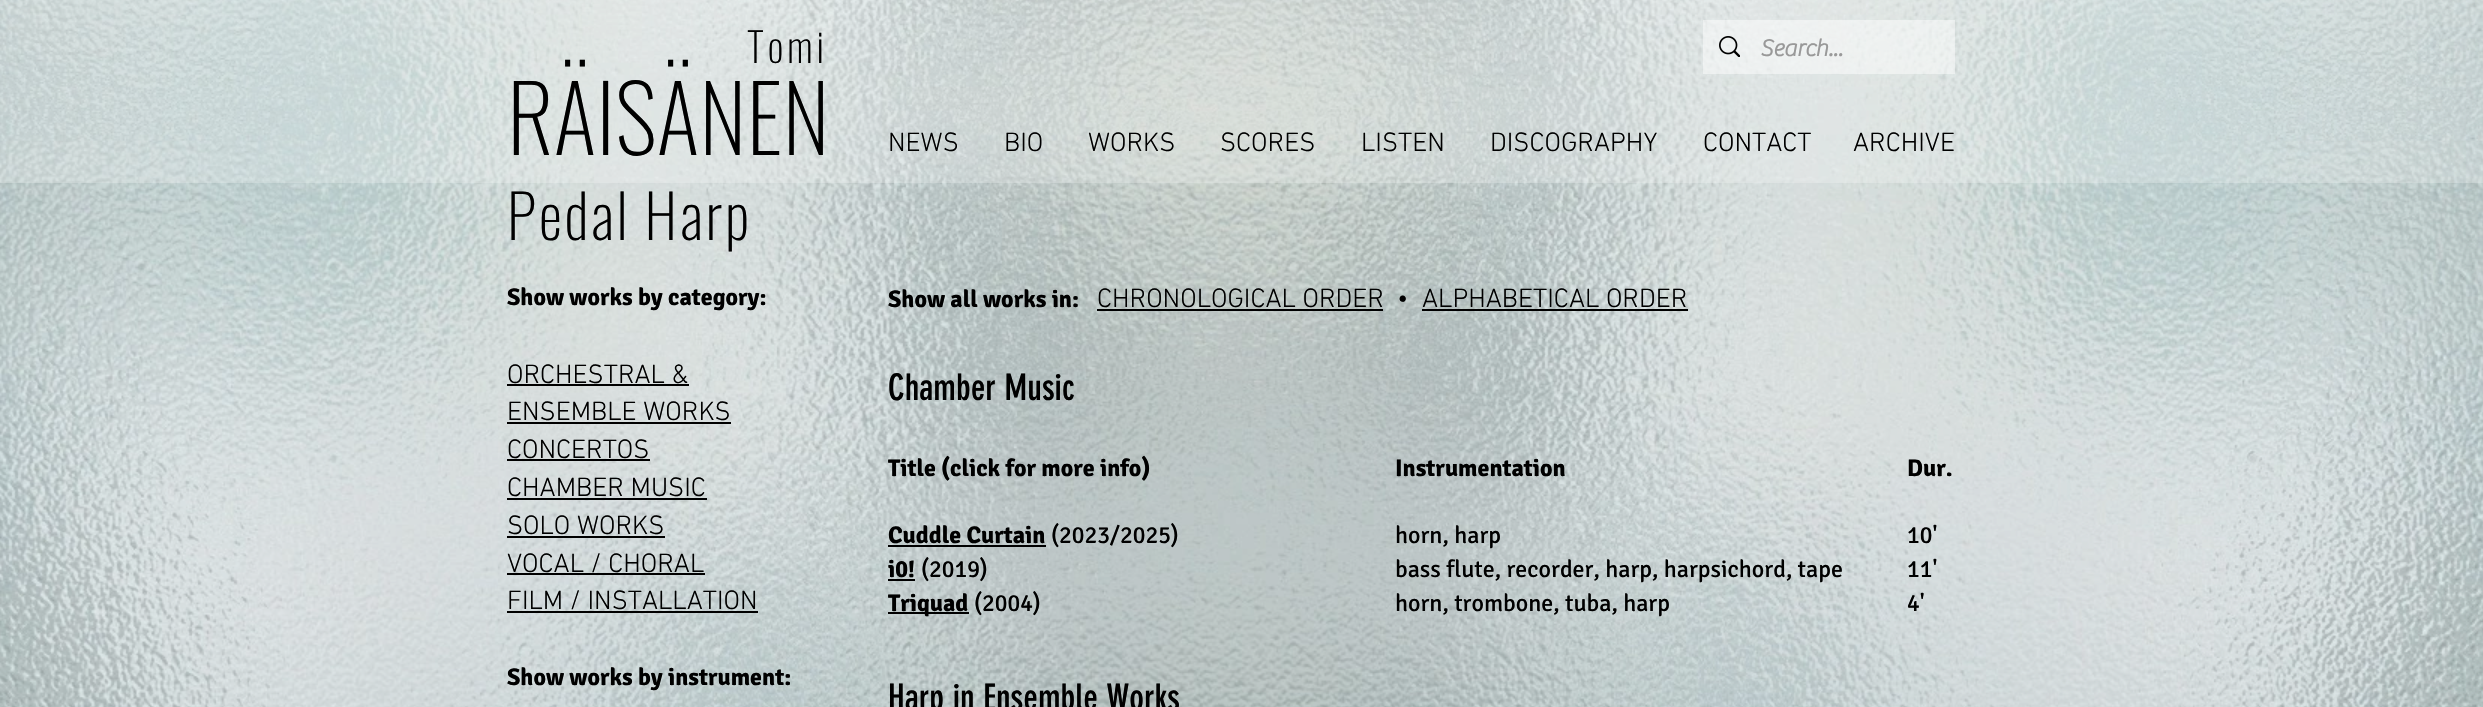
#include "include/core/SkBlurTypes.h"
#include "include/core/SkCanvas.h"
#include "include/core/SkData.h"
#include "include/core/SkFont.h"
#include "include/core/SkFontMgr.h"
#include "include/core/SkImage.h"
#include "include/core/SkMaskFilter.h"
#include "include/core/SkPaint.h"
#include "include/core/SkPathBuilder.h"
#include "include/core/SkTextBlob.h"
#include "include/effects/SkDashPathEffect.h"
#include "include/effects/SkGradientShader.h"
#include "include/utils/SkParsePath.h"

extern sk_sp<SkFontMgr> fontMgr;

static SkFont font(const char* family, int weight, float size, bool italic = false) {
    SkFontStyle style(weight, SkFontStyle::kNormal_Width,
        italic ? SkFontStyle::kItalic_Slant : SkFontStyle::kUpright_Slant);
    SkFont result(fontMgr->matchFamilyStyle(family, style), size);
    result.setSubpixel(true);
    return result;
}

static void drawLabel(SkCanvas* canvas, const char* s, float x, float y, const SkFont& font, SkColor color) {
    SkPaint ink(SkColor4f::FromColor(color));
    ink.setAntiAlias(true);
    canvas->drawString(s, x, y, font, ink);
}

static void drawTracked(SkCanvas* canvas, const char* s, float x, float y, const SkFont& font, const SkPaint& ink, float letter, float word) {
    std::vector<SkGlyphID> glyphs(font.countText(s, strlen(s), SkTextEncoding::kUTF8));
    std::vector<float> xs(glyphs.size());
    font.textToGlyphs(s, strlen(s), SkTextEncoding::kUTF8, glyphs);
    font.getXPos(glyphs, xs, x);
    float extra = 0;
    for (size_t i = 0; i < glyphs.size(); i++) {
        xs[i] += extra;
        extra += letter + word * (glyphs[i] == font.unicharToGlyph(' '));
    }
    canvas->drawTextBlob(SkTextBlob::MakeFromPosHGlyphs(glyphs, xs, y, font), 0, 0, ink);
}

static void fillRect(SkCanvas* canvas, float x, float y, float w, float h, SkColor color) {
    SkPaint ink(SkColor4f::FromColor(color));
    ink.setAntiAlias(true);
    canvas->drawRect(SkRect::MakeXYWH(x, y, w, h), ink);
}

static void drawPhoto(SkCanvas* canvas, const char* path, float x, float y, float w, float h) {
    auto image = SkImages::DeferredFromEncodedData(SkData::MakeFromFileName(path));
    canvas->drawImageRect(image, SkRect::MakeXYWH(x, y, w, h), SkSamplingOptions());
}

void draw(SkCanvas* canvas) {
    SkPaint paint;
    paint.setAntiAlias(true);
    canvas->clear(0xFFFFFFFF);
    drawPhoto(canvas, "assets/img1.png", 0, 0, 2483, 707);
    fillRect(canvas, 0, 0, 2483, 183, 0x3DFFFFFF);
    SkFont font1 = font("Oswald", 200, 40.5f);
    paint.setColor(0xFF000000);
    drawTracked(canvas, "Tomi", 747, 63, font1, paint, 4, 0);
    fillRect(canvas, 1703, 20, 252, 54, 0x78FFFFFF);
    drawPhoto(canvas, "assets/img2.png", 1719, 36, 21, 21);
    SkFont font2 = font("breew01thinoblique", 700, 24);
    drawLabel(canvas, "Search...", 1760, 56, font2, 0xFF999999);
    SkFont font3 = font("Oswald", 200, 91.5f);
    drawLabel(canvas, "RÄISÄNEN", 507, 155, font3, 0xFF000000);
    SkFont font4 = font("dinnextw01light", 300, 27);
    drawLabel(canvas, "NEWS", 888, 151, font4, 0xFF000000);
    drawLabel(canvas, "BIO", 1004, 151, font4, 0xFF000000);
    drawLabel(canvas, "WORKS", 1088, 151, font4, 0xFF000000);
    drawLabel(canvas, "SCORES", 1220, 151, font4, 0xFF000000);
    drawLabel(canvas, "LISTEN", 1361, 151, font4, 0xFF000000);
    drawLabel(canvas, "DISCOGRAPHY", 1490, 151, font4, 0xFF000000);
    drawLabel(canvas, "CONTACT", 1703, 151, font4, 0xFF000000);
    drawLabel(canvas, "ARCHIVE", 1853, 151, font4, 0xFF000000);
    SkFont font5 = font("Oswald", 200, 60);
    drawTracked(canvas, "Pedal Harp", 507, 240, font5, paint, 2.8f, 0);
    SkFont font6 = font("Signika", 700, 24);
    drawLabel(canvas, "Show works by category:", 507, 305, font6, 0xFF000000);
    drawLabel(canvas, "ORCHESTRAL &", 507, 383, font4, 0xFF000000);
    fillRect(canvas, 507, 384, 182, 2, 0xFF000000);
    drawLabel(canvas, "ENSEMBLE WORKS", 507, 420, font4, 0xFF000000);
    fillRect(canvas, 507, 422, 224, 2, 0xFF000000);
    drawLabel(canvas, "CONCERTOS", 507, 458, font4, 0xFF000000);
    fillRect(canvas, 507, 459, 143, 2, 0xFF000000);
    drawLabel(canvas, "CHAMBER MUSIC", 507, 496, font4, 0xFF000000);
    fillRect(canvas, 507, 498, 200, 2, 0xFF000000);
    drawLabel(canvas, "SOLO WORKS", 507, 534, font4, 0xFF000000);
    fillRect(canvas, 507, 536, 158, 2, 0xFF000000);
    drawLabel(canvas, "VOCAL / CHORAL", 507, 572, font4, 0xFF000000);
    fillRect(canvas, 507, 573, 198, 2, 0xFF000000);
    drawLabel(canvas, "FILM / INSTALLATION", 507, 609, font4, 0xFF000000);
    fillRect(canvas, 507, 611, 251, 2, 0xFF000000);
    drawLabel(canvas, "Show works by instrument:", 507, 685, font6, 0xFF000000);
    drawLabel(canvas, "Show all works in:", 888, 307, font6, 0xFF000000);
    drawLabel(canvas, "CHRONOLOGICAL ORDER", 1097, 307, font4, 0xFF000000);
    fillRect(canvas, 1097, 309, 286, 2, 0xFF000000);
    drawLabel(canvas, "•", 1397, 307, font4, 0xFF000000);
    drawLabel(canvas, "ALPHABETICAL ORDER", 1422, 307, font4, 0xFF000000);
    fillRect(canvas, 1422, 309, 266, 2, 0xFF000000);
    SkFont font7 = font("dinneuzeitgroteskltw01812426", 400, 36);
    drawLabel(canvas, "Chamber Music", 888, 400, font7, 0xFF000000);
    drawLabel(canvas, "Title (click for more info)", 888, 476, font6, 0xFF000000);
    drawLabel(canvas, "Cuddle Curtain", 888, 543, font6, 0xFF000000);
    fillRect(canvas, 888, 545, 158, 2, 0xFF000000);
    SkFont font8 = font("Signika", 400, 24);
    drawLabel(canvas, "(2023/2025)", 1051, 543, font8, 0xFF000000);
    drawLabel(canvas, "i0!", 888, 577, font6, 0xFF000000);
    fillRect(canvas, 888, 579, 27, 2, 0xFF000000);
    drawLabel(canvas, "(2019)", 921, 577, font8, 0xFF000000);
    fillRect(canvas, 888, 612, 81, 2, 0xFF000000);
    drawLabel(canvas, "Triquad", 888, 611, font6, 0xFF000000);
    drawLabel(canvas, "(2004)", 974, 611, font8, 0xFF000000);
    drawLabel(canvas, "Instrumentation", 1395, 476, font6, 0xFF000000);
    drawLabel(canvas, "horn, harp", 1395, 543, font8, 0xFF000000);
    drawLabel(canvas, "bass flute, recorder, harp, harpsichord, tape", 1395, 577, font8, 0xFF000000);
    drawLabel(canvas, "horn, trombone, tuba, harp", 1395, 611, font8, 0xFF000000);
    drawLabel(canvas, "Dur.", 1907, 476, font6, 0xFF000000);
    drawLabel(canvas, "10'", 1907, 543, font8, 0xFF000000);
    drawLabel(canvas, "11'", 1907, 577, font8, 0xFF000000);
    drawLabel(canvas, "4'", 1907, 611, font8, 0xFF000000);
    drawLabel(canvas, "Harp in Ensemble Works", 888, 710, font7, 0xFF000000);
}
